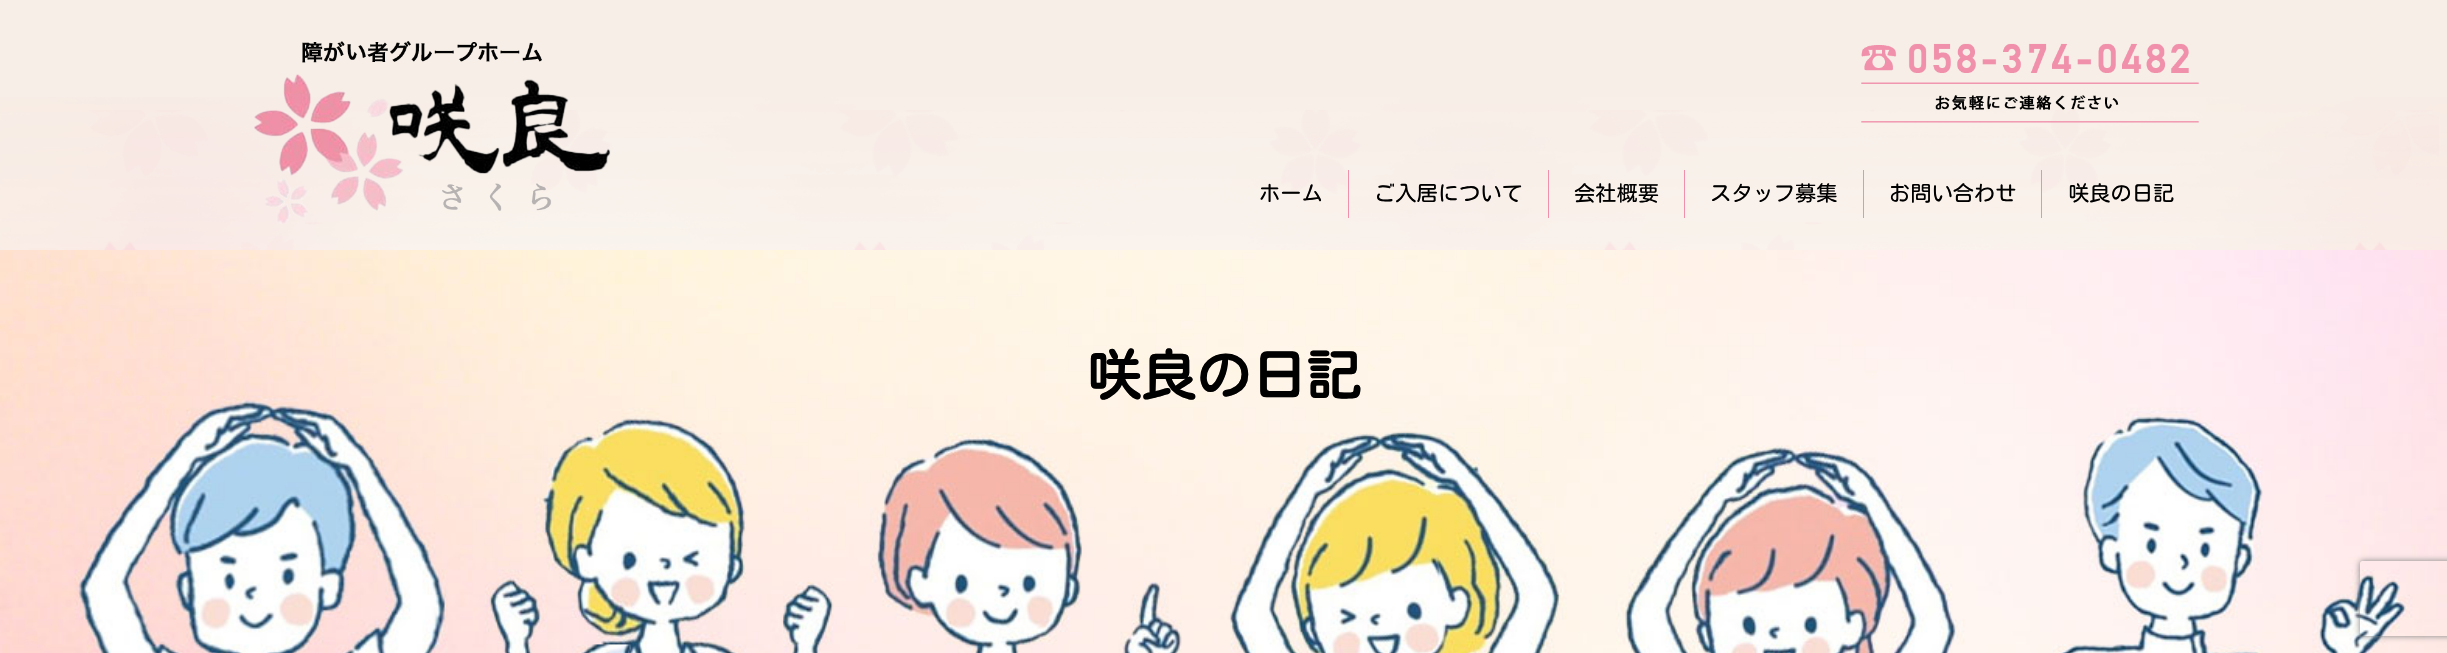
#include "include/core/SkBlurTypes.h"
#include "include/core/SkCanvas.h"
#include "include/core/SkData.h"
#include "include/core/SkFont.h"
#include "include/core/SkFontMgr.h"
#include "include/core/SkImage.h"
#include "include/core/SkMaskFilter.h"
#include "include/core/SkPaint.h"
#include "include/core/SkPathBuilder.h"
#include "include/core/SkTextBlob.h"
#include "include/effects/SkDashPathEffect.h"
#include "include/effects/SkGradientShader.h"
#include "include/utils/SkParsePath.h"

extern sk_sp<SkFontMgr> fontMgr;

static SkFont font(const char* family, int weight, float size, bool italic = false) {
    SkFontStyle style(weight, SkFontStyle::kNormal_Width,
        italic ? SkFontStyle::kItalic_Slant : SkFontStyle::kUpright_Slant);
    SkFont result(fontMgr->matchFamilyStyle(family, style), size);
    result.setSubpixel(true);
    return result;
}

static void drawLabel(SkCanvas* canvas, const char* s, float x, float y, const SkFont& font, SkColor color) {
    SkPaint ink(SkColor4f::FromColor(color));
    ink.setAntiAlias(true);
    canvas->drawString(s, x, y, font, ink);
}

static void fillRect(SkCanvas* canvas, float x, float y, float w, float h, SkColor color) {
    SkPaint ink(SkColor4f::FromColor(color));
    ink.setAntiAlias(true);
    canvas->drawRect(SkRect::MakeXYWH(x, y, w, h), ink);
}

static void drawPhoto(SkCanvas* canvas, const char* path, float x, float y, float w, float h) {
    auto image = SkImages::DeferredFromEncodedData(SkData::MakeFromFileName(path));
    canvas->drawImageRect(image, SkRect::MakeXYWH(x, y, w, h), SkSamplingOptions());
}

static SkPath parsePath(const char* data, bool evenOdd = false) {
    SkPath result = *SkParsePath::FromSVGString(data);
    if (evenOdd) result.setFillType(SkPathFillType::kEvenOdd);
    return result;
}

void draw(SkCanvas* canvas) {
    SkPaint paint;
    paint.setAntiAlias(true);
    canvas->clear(0xFFF7EFE7);
    drawPhoto(canvas, "assets/img1.png", 0, 97, 2447, 153);
    drawPhoto(canvas, "assets/img2.png", 89, 110, 2350, 140);
    drawPhoto(canvas, "assets/img3.png", 254, 41, 357, 183);
    drawPhoto(canvas, "assets/img4.png", 1861, 43, 338, 80);
    fillRect(canvas, 1348, 170, 1, 48, 0xFFF090AB);
    SkFont font1 = font("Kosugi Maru", 400, 21.25f);
    drawLabel(canvas, "ホーム", 1259, 201, font1, 0xFF000000);
    fillRect(canvas, 1548, 170, 1, 48, 0xFFF090AB);
    drawLabel(canvas, "ご入居について", 1374, 201, font1, 0xFF000000);
    fillRect(canvas, 1684, 170, 1, 48, 0xFFF090AB);
    drawLabel(canvas, "会社概要", 1574, 201, font1, 0xFF000000);
    fillRect(canvas, 1863, 170, 1, 48, 0xFFF090AB);
    drawLabel(canvas, "スタッフ募集", 1710, 201, font1, 0xFF000000);
    fillRect(canvas, 2041, 170, 1, 48, 0xFFF090AB);
    drawLabel(canvas, "お問い合わせ", 1889, 201, font1, 0xFF000000);
    drawLabel(canvas, "咲良の日記", 2068, 201, font1, 0xFF000000);
    drawPhoto(canvas, "assets/img5.png", 0, 250, 2447, 403);
    SkFont font2 = font("Kosugi Maru", 700, 55);
    drawLabel(canvas, "咲良の日記", 1086, 396, font2, 0xFF000000);
    canvas->save();
    canvas->clipPath(parsePath("M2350 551H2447V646H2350ZM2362.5 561H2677.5C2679 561 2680 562 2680 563.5V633.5C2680 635 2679 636 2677.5 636H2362.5C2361 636 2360 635 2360 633.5V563.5C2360 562 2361 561 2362.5 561Z", true), true);
    paint.setColor(0xFF808080);
    paint.setMaskFilter(SkMaskFilter::MakeBlur(kNormal_SkBlurStyle, 3));
    canvas->drawRoundRect(SkRect::MakeXYWH(2360, 561, 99, 75), 2.5f, 2.5f, paint);
    paint.setMaskFilter(nullptr);
    canvas->restore();
}
